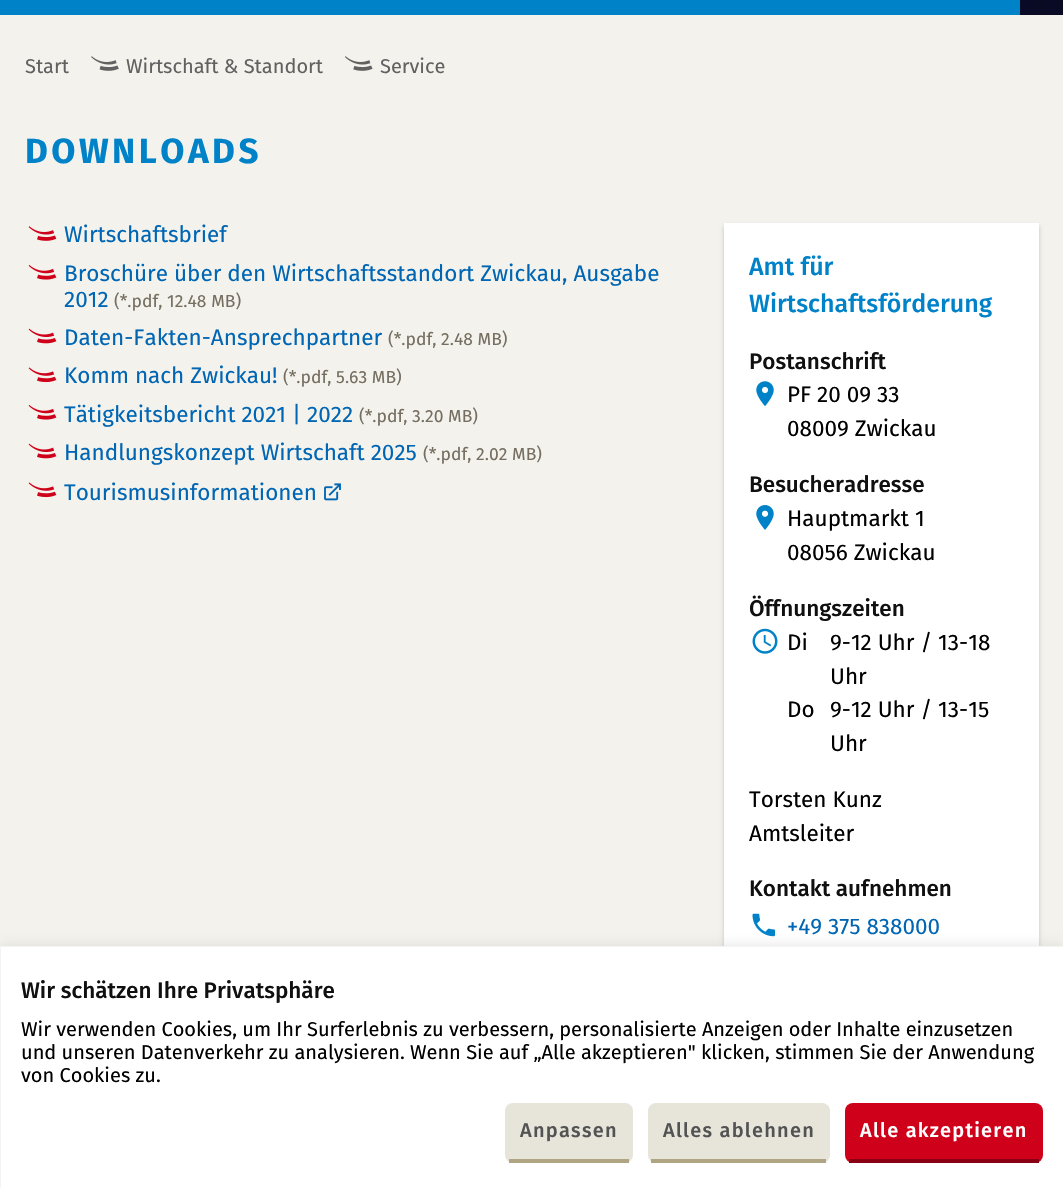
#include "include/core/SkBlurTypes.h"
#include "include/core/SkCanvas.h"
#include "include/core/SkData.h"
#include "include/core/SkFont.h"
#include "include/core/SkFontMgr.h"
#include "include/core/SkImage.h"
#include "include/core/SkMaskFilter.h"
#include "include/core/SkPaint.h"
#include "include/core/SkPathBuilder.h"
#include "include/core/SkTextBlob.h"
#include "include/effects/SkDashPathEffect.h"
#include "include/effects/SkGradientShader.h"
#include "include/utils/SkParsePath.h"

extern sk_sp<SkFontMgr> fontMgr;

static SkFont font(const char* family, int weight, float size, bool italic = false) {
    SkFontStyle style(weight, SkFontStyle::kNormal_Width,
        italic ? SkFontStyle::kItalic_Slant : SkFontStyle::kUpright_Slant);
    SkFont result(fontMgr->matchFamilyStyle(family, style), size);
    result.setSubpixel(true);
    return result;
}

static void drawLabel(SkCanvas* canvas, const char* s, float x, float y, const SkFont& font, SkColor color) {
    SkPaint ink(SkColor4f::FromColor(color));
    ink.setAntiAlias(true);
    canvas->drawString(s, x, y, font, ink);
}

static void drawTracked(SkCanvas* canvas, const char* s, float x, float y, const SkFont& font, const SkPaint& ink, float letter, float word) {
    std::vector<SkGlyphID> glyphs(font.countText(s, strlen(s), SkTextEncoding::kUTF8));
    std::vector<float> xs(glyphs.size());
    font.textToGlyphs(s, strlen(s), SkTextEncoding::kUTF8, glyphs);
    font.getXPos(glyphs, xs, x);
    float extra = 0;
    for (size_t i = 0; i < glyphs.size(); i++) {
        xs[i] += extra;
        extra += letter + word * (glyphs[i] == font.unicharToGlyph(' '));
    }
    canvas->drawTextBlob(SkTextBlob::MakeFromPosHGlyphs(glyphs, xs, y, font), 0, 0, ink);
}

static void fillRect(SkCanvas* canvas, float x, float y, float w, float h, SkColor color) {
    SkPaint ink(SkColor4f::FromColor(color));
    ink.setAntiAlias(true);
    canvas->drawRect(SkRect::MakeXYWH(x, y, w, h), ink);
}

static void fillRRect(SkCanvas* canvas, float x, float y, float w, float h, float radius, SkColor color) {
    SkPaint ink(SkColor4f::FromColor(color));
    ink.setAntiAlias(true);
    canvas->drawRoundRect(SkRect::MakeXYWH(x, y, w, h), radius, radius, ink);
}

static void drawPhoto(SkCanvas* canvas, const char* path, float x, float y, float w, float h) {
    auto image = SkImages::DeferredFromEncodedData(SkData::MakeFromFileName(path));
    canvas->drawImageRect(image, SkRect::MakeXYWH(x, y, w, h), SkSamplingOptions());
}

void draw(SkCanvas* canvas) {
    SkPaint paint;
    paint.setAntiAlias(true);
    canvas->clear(0xFFFFFFFF);
    fillRect(canvas, 0, 0, 1020, 15, 0xFF0082C8);
    {
        const SkColor colors[] = {0xFF0066B4, 0xFF0064B1, 0xFF015FA9, 0xFF01599F, 0xFF025294, 0xFF034B89, 0xFF03437D, 0xFF043C72, 0xFF053466, 0xFF062C5A, 0xFF06254E, 0xFF071D42, 0xFF081738, 0xFF08112E, 0xFF090C27, 0xFF090A24};
        const float stops[] = {0, 0.1f, 0.18f, 0.25f, 0.31f, 0.37f, 0.42f, 0.48f, 0.53f, 0.58f, 0.64f, 0.69f, 0.76f, 0.83f, 0.91f, 1};
        const SkPoint ends[] = {{425, -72}, {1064, -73}};
        paint.setShader(SkGradientShader::MakeLinear(ends, colors, stops, 16, SkTileMode::kClamp));
        paint.setAlpha(255);
    }
    canvas->drawRect(SkRect::MakeXYWH(1020, 0, 43, 15), paint);
    fillRect(canvas, 0, 15, 1063, 931, 0xFFF3F2EC);
    SkFont font1 = font("Fira Sans", 400, 20);
    drawLabel(canvas, "Start", 25, 73, font1, 0xFF616161);
    drawPhoto(canvas, "assets/img1.png", 91, 56, 28, 15);
    drawLabel(canvas, "Wirtschaft & Standort", 126, 73, font1, 0xFF616161);
    drawPhoto(canvas, "assets/img2.png", 345, 56, 28, 15);
    drawLabel(canvas, "Service", 380, 73, font1, 0xFF616161);
    SkFont font2 = font("Fira Sans", 700, 35);
    paint.setShader(nullptr);
    paint.setColor(0xFF0082C8);
    drawTracked(canvas, "DOWNLOADS", 25, 163, font2, paint, 3.5f, 0);
    drawPhoto(canvas, "assets/img3.png", 28, 226, 29, 15);
    SkFont font3 = font("Fira Sans", 400, 22.5f);
    drawLabel(canvas, "Wirtschaftsbrief", 64, 242, font3, 0xFF0066B4);
    drawPhoto(canvas, "assets/img4.png", 28, 265, 29, 15);
    drawLabel(canvas, "Broschüre über den Wirtschaftsstandort Zwickau, Ausgabe", 64, 281, font3, 0xFF0066B4);
    drawLabel(canvas, "2012", 64, 307, font3, 0xFF0066B4);
    SkFont font4 = font("Fira Sans", 400, 17.5f);
    drawLabel(canvas, "(*.pdf, 12.48 MB)", 114, 307, font4, 0xFF756E61);
    drawPhoto(canvas, "assets/img5.png", 28, 328, 29, 16);
    drawLabel(canvas, "Daten-Fakten-Ansprechpartner", 64, 345, font3, 0xFF0066B4);
    drawLabel(canvas, "(*.pdf, 2.48 MB)", 388, 345, font4, 0xFF756E61);
    drawPhoto(canvas, "assets/img6.png", 28, 367, 29, 16);
    drawLabel(canvas, "Komm nach Zwickau!", 64, 383, font3, 0xFF0066B4);
    drawLabel(canvas, "(*.pdf, 5.63 MB)", 283, 383, font4, 0xFF756E61);
    drawPhoto(canvas, "assets/img4.png", 28, 405, 29, 15);
    drawLabel(canvas, "Tätigkeitsbericht 2021 | 2022", 64, 422, font3, 0xFF0066B4);
    drawLabel(canvas, "(*.pdf, 3.20 MB)", 359, 422, font4, 0xFF756E61);
    drawPhoto(canvas, "assets/img5.png", 28, 443, 29, 16);
    drawLabel(canvas, "Handlungskonzept Wirtschaft 2025", 64, 460, font3, 0xFF0066B4);
    drawLabel(canvas, "(*.pdf, 2.02 MB)", 423, 460, font4, 0xFF756E61);
    drawPhoto(canvas, "assets/img6.png", 28, 482, 29, 16);
    drawLabel(canvas, "Tourismusinformationen", 64, 500, font3, 0xFF0066B4);
    drawPhoto(canvas, "assets/img7.png", 324, 483, 17, 18);
    paint.setColor(0x33000000);
    paint.setMaskFilter(SkMaskFilter::MakeBlur(kNormal_SkBlurStyle, 2));
    canvas->drawRect(SkRect::MakeXYWH(724, 226, 315, 833), paint);
    paint.setMaskFilter(nullptr);
    fillRect(canvas, 724, 223, 315, 723, 0xFFFFFFFF);
    SkFont font5 = font("Fira Sans", 500, 25);
    drawLabel(canvas, "Amt für", 749, 275, font5, 0xFF0082C8);
    drawLabel(canvas, "Wirtschaftsförderung", 749, 312, font5, 0xFF0082C8);
    SkFont font6 = font("Fira Sans", 500, 22.5f);
    drawLabel(canvas, "Postanschrift", 749, 369, font6, 0xFF101010);
    drawPhoto(canvas, "assets/img8.png", 756, 381, 18, 25);
    drawLabel(canvas, "PF 20 09 33", 787, 402, font3, 0xFF000000);
    drawLabel(canvas, "08009 Zwickau", 787, 436, font3, 0xFF000000);
    drawLabel(canvas, "Besucheradresse", 749, 492, font6, 0xFF101010);
    drawPhoto(canvas, "assets/img9.png", 756, 505, 18, 25);
    drawLabel(canvas, "Hauptmarkt 1", 787, 526, font3, 0xFF000000);
    drawLabel(canvas, "08056 Zwickau", 787, 560, font3, 0xFF000000);
    drawLabel(canvas, "Öffnungszeiten", 749, 616, font6, 0xFF101010);
    drawPhoto(canvas, "assets/img10.png", 752, 628, 26, 26);
    drawLabel(canvas, "Di", 787, 650, font3, 0xFF000000);
    drawLabel(canvas, "9-12 Uhr / 13-18", 830, 650, font3, 0xFF000000);
    drawLabel(canvas, "Uhr", 830, 684, font3, 0xFF000000);
    drawLabel(canvas, "Do", 787, 717, font3, 0xFF000000);
    drawLabel(canvas, "9-12 Uhr / 13-15", 830, 717, font3, 0xFF000000);
    drawLabel(canvas, "Uhr", 830, 751, font3, 0xFF000000);
    drawLabel(canvas, "Torsten Kunz", 749, 807, font3, 0xFF000000);
    drawLabel(canvas, "Amtsleiter", 749, 841, font3, 0xFF000000);
    drawLabel(canvas, "Kontakt aufnehmen", 749, 896, font6, 0xFF101010);
    drawPhoto(canvas, "assets/img11.png", 752, 913, 23, 24);
    drawLabel(canvas, "+49 375 838000", 787, 934, font3, 0xFF0066B4);
    paint.setColor(0x4DACABAB);
    paint.setMaskFilter(SkMaskFilter::MakeBlur(kNormal_SkBlurStyle, 6));
    canvas->drawRect(SkRect::MakeXYWH(0, 945, 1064, 243), paint);
    paint.setMaskFilter(nullptr);
    paint.setColor(0xFFFFFFFF);
    canvas->drawRect(SkRect::MakeXYWH(0.5f, 946.5f, 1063, 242), paint);
    paint.setStroke(true);
    paint.setStrokeWidth(1);
    paint.setColor(0xFFF4F4F4);
    canvas->drawRect(SkRect::MakeXYWH(0.5f, 946.5f, 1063, 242), paint);
    drawLabel(canvas, "Wir schätzen Ihre Privatsphäre", 21, 998, font6, 0xFF101010);
    drawLabel(canvas, "Wir verwenden Cookies, um Ihr Surferlebnis zu verbessern, personalisierte Anzeigen oder Inhalte einzusetzen", 21, 1036, font1, 0xFF000000);
    drawLabel(canvas, "und unseren Datenverkehr zu analysieren. Wenn Sie auf „Alle akzeptieren\" klicken, stimmen Sie der Anwendung", 21, 1059, font1, 0xFF000000);
    drawLabel(canvas, "von Cookies zu.", 21, 1082, font1, 0xFF000000);
    fillRRect(canvas, 505, 1103, 128, 60, 8, 0xFFE7E4DA);
    fillRect(canvas, 509, 1159, 120, 4, 0xFFAFA582);
    SkFont font7 = font("Fira Sans", 500, 20);
    paint.setStroke(false);
    paint.setColor(0xFF535353);
    drawTracked(canvas, "Anpassen", 520, 1137, font7, paint, 1.25f, 0);
    fillRRect(canvas, 648, 1103, 182, 60, 8, 0xFFE7E4DA);
    fillRect(canvas, 651, 1159, 175, 4, 0xFFAFA582);
    drawTracked(canvas, "Alles ablehnen", 663, 1137, font7, paint, 1.25f, 0);
    fillRRect(canvas, 845, 1103, 198, 60, 8, 0xFFCF0019);
    fillRect(canvas, 849, 1159, 190, 4, 0xFF890015);
    paint.setColor(0xFFFFFFFF);
    drawTracked(canvas, "Alle akzeptieren", 860, 1137, font7, paint, 1.25f, 0);
}
